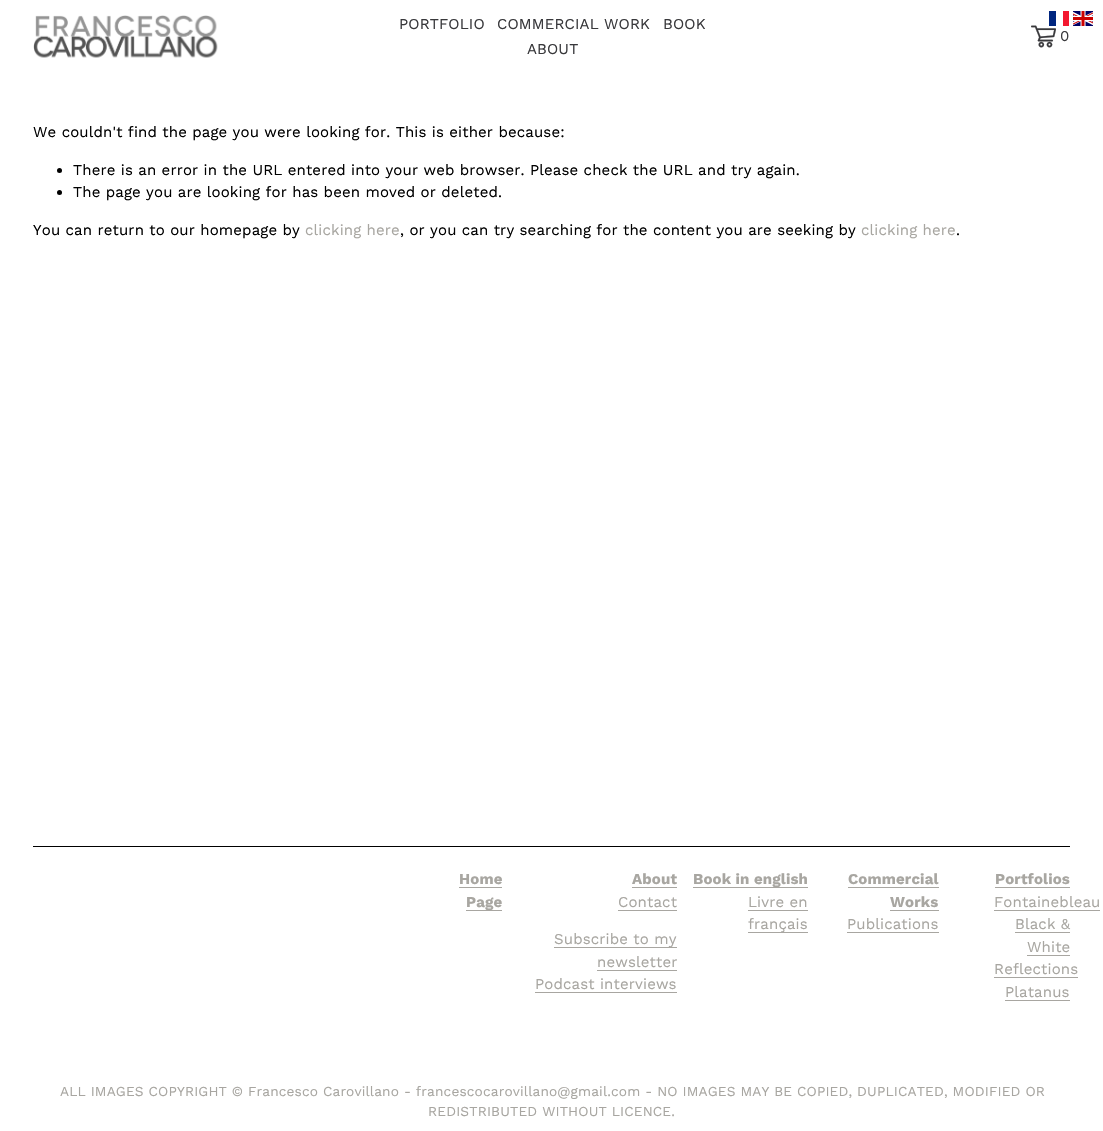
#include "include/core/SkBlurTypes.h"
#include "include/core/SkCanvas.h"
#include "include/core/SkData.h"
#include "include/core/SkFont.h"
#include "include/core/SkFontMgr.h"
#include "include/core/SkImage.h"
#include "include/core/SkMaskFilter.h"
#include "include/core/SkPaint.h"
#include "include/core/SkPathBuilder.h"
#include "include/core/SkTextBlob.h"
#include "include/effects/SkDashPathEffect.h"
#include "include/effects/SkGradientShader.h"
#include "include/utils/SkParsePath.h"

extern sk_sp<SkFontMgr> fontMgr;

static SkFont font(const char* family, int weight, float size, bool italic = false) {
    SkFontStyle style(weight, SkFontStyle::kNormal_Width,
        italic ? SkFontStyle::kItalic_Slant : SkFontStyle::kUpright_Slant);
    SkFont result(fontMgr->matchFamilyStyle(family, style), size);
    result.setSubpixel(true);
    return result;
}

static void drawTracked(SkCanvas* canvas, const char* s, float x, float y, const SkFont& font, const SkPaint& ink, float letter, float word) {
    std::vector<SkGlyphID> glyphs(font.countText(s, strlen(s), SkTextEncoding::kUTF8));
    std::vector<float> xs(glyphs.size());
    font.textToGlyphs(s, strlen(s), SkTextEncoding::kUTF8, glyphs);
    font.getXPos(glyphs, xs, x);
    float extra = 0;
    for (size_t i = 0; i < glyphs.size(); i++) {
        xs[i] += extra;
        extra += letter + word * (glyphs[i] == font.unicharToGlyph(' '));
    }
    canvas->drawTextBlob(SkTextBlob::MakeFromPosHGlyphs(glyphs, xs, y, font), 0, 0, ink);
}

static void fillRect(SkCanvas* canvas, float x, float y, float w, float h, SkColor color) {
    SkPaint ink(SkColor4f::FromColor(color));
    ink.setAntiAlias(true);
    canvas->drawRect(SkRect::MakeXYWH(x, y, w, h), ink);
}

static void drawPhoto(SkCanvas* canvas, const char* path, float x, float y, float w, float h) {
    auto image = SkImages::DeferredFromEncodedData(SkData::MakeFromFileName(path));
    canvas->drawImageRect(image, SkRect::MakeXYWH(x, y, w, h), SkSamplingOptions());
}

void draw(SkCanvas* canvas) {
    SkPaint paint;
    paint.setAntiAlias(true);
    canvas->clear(0xFFFFFFFF);
    drawPhoto(canvas, "assets/img3.png", 1031, 25, 25, 23);
    fillRect(canvas, 1049, 11, 7, 15, 0xFF00267F);
    fillRect(canvas, 1063, 11, 6, 15, 0xFFF31830);
    drawPhoto(canvas, "assets/img1.png", 1073, 11, 20, 15);
    drawPhoto(canvas, "assets/img2.png", 33, 15, 185, 43);
    SkFont font1 = font("Work Sans", 400, 15);
    paint.setColor(0xFF38383B);
    drawTracked(canvas, "PORTFOLIO", 399, 29, font1, paint, 0.15f, 0);
    drawTracked(canvas, "COMMERCIAL WORK", 497, 29, font1, paint, 0.15f, 0);
    drawTracked(canvas, "BOOK", 663, 29, font1, paint, 0.15f, 0);
    drawTracked(canvas, "ABOUT", 527, 54, font1, paint, 0.15f, 0);
    drawTracked(canvas, "0", 1060, 41, font1, paint, 0.15f, 0);
    paint.setColor(0xFF000000);
    drawTracked(canvas, "We couldn't find the page you were looking for. This is either because:", 33, 137, font1, paint, 0.15f, 0);
    canvas->drawCircle(59.5f, 170.5f, 2.5f, paint);
    drawTracked(canvas, "There is an error in the URL entered into your web browser. Please check the URL and try again.", 73, 175, font1, paint, 0.15f, 0);
    canvas->drawCircle(59.5f, 192.5f, 2.5f, paint);
    drawTracked(canvas, "The page you are looking for has been moved or deleted.", 73, 197, font1, paint, 0.15f, 0);
    drawTracked(canvas, "You can return to our homepage by", 33, 235, font1, paint, 0.15f, 0);
    paint.setColor(0xFFA8A6A1);
    drawTracked(canvas, "clicking here", 305, 235, font1, paint, 0.15f, 0);
    paint.setColor(0xFF000000);
    drawTracked(canvas, ", or you can try searching for the content you are seeking by", 400, 235, font1, paint, 0.15f, 0);
    paint.setColor(0xFFA8A6A1);
    drawTracked(canvas, "clicking here", 861, 235, font1, paint, 0.15f, 0);
    paint.setColor(0xFF000000);
    drawTracked(canvas, ".", 956, 235, font1, paint, 0.15f, 0);
    fillRect(canvas, 33, 846, 1037, 1, 0xFF000000);
    SkFont font2 = font("Work Sans", 700, 15);
    paint.setColor(0xFFA8A6A1);
    drawTracked(canvas, "Home", 459, 884, font2, paint, 0.15f, 0);
    fillRect(canvas, 459, 887, 43, 1, 0xFFA8A6A1);
    fillRect(canvas, 466, 910, 36, 1, 0xFFA8A6A1);
    drawTracked(canvas, "Page", 466, 907, font2, paint, 0.15f, 0);
    drawTracked(canvas, "About", 632, 884, font2, paint, 0.15f, 0);
    fillRect(canvas, 632, 887, 45, 1, 0xFFA8A6A1);
    drawTracked(canvas, "Contact", 618, 907, font1, paint, 0.15f, 0);
    fillRect(canvas, 618, 910, 59, 1, 0xFFA8A6A1);
    fillRect(canvas, 554, 947, 123, 1, 0xFFA8A6A1);
    drawTracked(canvas, "Subscribe to my", 554, 944, font1, paint, 0.15f, 0);
    drawTracked(canvas, "newsletter", 597, 967, font1, paint, 0.15f, 0);
    fillRect(canvas, 597, 970, 80, 1, 0xFFA8A6A1);
    drawTracked(canvas, "Podcast interviews", 535, 989, font1, paint, 0.15f, 0);
    fillRect(canvas, 535, 992, 142, 1, 0xFFA8A6A1);
    fillRect(canvas, 693, 887, 115, 1, 0xFFA8A6A1);
    drawTracked(canvas, "Book in english", 693, 884, font2, paint, 0.15f, 0);
    drawTracked(canvas, "Livre en", 748, 907, font1, paint, 0.15f, 0);
    fillRect(canvas, 748, 910, 60, 1, 0xFFA8A6A1);
    fillRect(canvas, 748, 932, 60, 1, 0xFFA8A6A1);
    drawTracked(canvas, "français", 748, 929, font1, paint, 0.15f, 0);
    drawTracked(canvas, "Commercial", 848, 884, font2, paint, 0.15f, 0);
    fillRect(canvas, 848, 887, 91, 1, 0xFFA8A6A1);
    drawTracked(canvas, "Works", 890, 907, font2, paint, 0.15f, 0);
    fillRect(canvas, 890, 910, 49, 1, 0xFFA8A6A1);
    drawTracked(canvas, "Publications", 847, 929, font1, paint, 0.15f, 0);
    fillRect(canvas, 847, 932, 92, 1, 0xFFA8A6A1);
    drawTracked(canvas, "Portfolios", 995, 884, font2, paint, 0.15f, 0);
    fillRect(canvas, 995, 887, 75, 1, 0xFFA8A6A1);
    drawTracked(canvas, "Fontainebleau", 994, 907, font1, paint, 0.15f, 0);
    fillRect(canvas, 994, 910, 106, 1, 0xFFA8A6A1);
    drawTracked(canvas, "Black &", 1015, 929, font1, paint, 0.15f, 0);
    fillRect(canvas, 1015, 932, 55, 1, 0xFFA8A6A1);
    drawTracked(canvas, "White", 1027, 952, font1, paint, 0.15f, 0);
    fillRect(canvas, 1027, 955, 43, 1, 0xFFA8A6A1);
    drawTracked(canvas, "Reflections", 994, 974, font1, paint, 0.15f, 0);
    fillRect(canvas, 994, 977, 84, 1, 0xFFA8A6A1);
    drawTracked(canvas, "Platanus", 1005, 997, font1, paint, 0.15f, 0);
    fillRect(canvas, 1005, 1000, 65, 1, 0xFFA8A6A1);
    SkFont font3 = font("Work Sans", 400, 13.68f);
    drawTracked(canvas, "ALL IMAGES COPYRIGHT © Francesco Carovillano - francescocarovillano@gmail.com - NO IMAGES MAY BE COPIED, DUPLICATED, MODIFIED OR", 60, 1096, font3, paint, 0.15f, 0);
    drawTracked(canvas, "REDISTRIBUTED WITHOUT LICENCE.", 428, 1116, font3, paint, 0.15f, 0);
}
